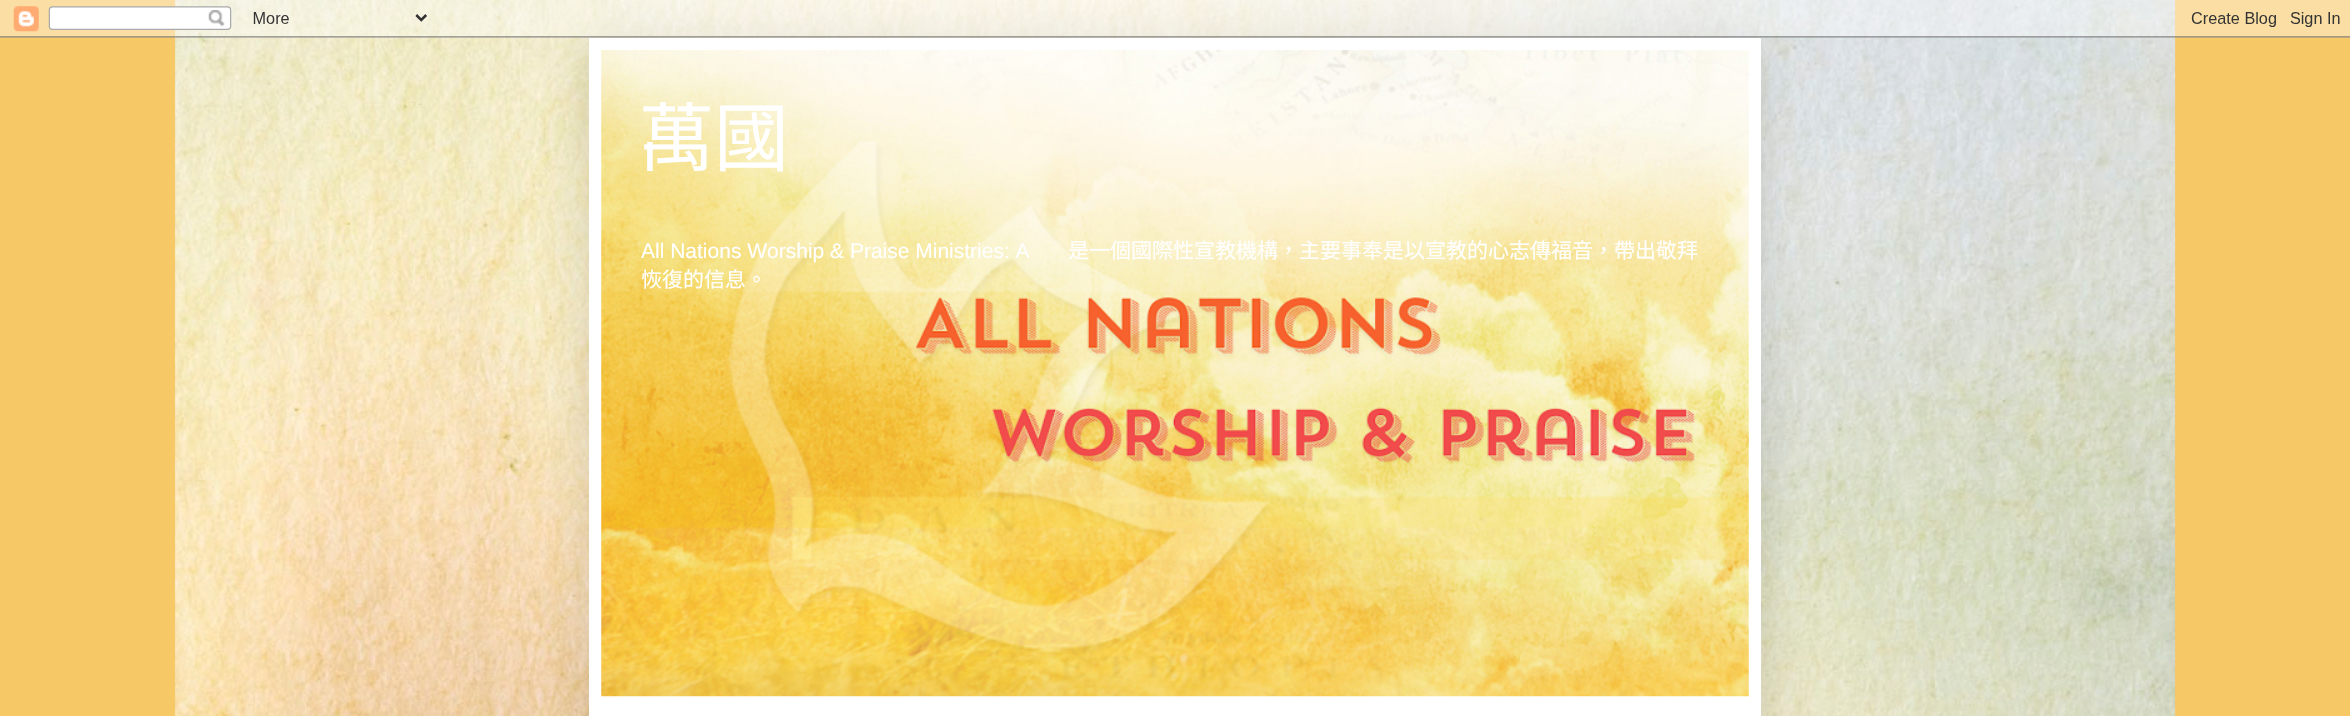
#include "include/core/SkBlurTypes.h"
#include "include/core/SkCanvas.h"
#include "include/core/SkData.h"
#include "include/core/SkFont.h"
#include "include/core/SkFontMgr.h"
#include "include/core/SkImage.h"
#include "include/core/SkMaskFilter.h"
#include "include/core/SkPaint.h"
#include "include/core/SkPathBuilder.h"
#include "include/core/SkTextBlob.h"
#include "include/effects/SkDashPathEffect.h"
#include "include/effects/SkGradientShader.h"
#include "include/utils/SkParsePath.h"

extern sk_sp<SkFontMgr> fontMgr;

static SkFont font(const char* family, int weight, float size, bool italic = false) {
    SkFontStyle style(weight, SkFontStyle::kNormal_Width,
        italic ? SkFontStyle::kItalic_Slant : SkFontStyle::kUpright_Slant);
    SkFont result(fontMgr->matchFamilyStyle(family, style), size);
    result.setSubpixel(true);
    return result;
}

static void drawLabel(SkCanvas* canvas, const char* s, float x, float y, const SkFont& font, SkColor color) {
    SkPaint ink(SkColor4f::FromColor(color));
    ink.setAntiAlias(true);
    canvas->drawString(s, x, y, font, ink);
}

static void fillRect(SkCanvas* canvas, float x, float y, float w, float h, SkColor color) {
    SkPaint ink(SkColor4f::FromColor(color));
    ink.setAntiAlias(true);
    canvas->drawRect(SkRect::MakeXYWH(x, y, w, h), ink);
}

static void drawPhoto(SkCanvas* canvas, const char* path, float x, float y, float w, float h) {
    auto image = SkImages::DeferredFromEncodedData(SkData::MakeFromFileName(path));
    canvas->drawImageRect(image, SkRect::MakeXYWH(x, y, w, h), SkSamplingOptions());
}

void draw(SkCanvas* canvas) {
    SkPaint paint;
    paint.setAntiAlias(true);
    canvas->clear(0xFFF6C866);
    drawPhoto(canvas, "assets/img1.png", 174, 0, 2002, 716);
    paint.setColor(0x26000000);
    paint.setMaskFilter(SkMaskFilter::MakeBlur(kNormal_SkBlurStyle, 25));
    canvas->drawRect(SkRect::MakeXYWH(589, 38, 1172, 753), paint);
    paint.setMaskFilter(nullptr);
    drawPhoto(canvas, "assets/img2.png", 0, 0, 2350, 38);
    fillRect(canvas, 589, 38, 1172, 678, 0xFFFFFFFF);
    drawPhoto(canvas, "assets/img3.png", 601, 50, 1148, 547);
    drawPhoto(canvas, "assets/img4.png", 601, 50, 1148, 647);
    SkFont font1 = font("Noto Sans CJK TC", 400, 75);
    drawLabel(canvas, "萬國", 639, 165, font1, 0xFFFFFFFF);
    SkFont font2 = font("Liberation Sans", 400, 21);
    drawLabel(canvas, "All Nations Worship & Praise Ministries: A", 641, 258, font2, 0xFFFFFFFF);
    SkFont font3 = font("Noto Sans CJK TC", 400, 21);
    drawLabel(canvas, "是一個國際性宣教機構，主要事奉是以宣教的心志傳福音，帶出敬拜", 1068, 258, font3, 0xFFFFFFFF);
    drawLabel(canvas, "恢復的信息。", 641, 287, font3, 0xFFFFFFFF);
}
